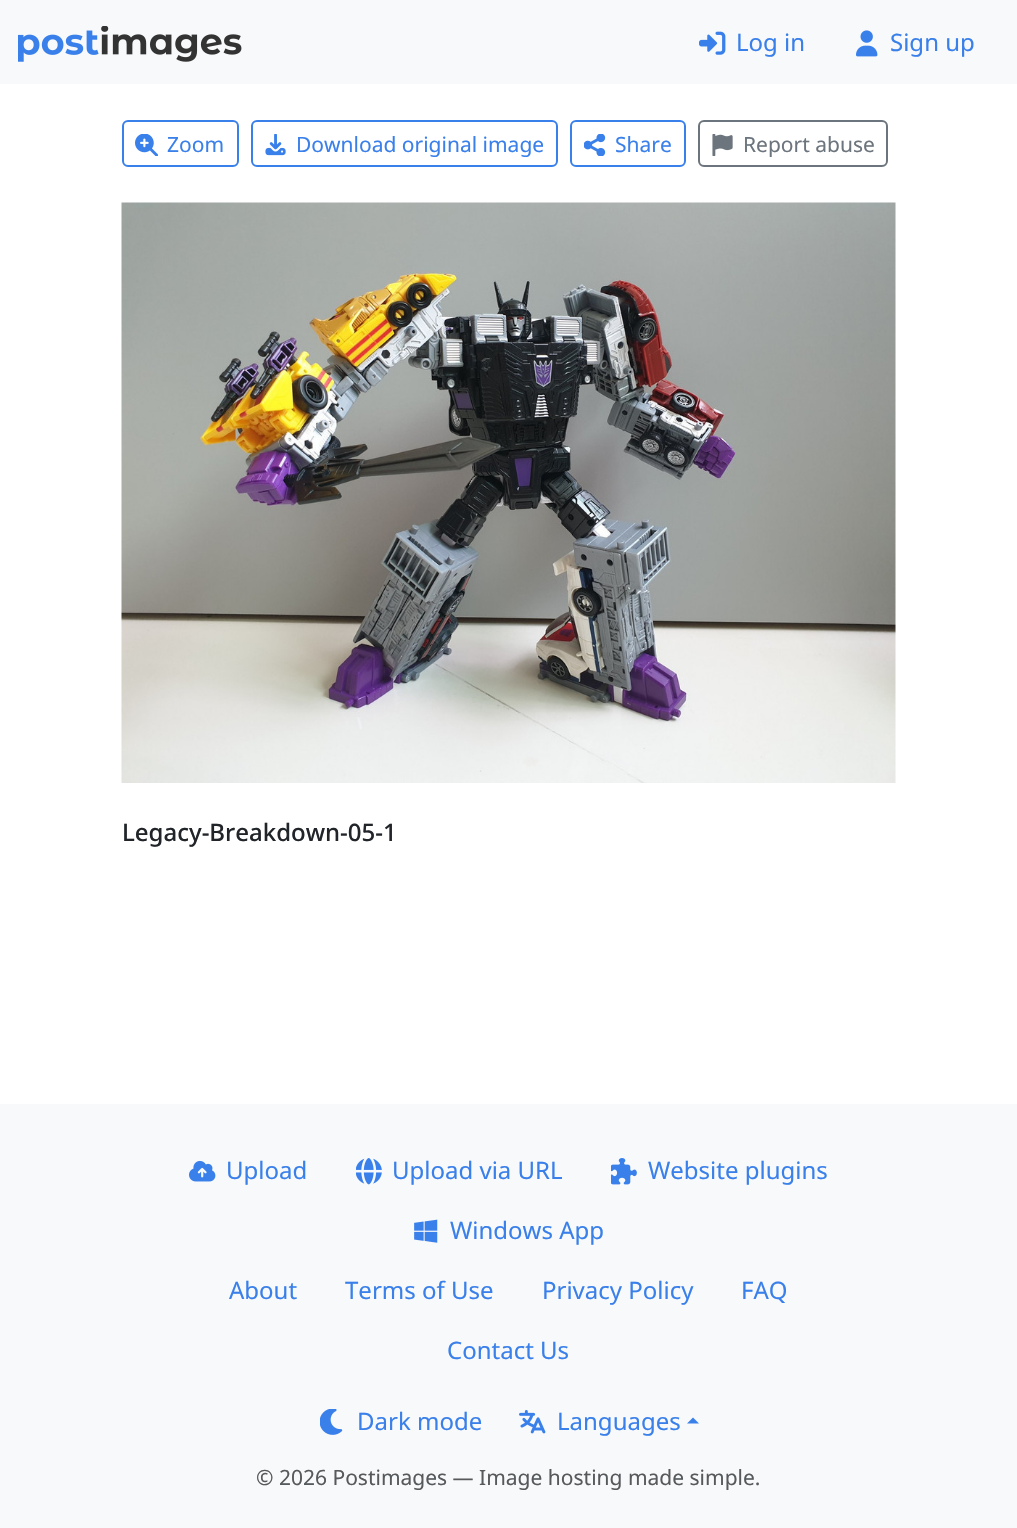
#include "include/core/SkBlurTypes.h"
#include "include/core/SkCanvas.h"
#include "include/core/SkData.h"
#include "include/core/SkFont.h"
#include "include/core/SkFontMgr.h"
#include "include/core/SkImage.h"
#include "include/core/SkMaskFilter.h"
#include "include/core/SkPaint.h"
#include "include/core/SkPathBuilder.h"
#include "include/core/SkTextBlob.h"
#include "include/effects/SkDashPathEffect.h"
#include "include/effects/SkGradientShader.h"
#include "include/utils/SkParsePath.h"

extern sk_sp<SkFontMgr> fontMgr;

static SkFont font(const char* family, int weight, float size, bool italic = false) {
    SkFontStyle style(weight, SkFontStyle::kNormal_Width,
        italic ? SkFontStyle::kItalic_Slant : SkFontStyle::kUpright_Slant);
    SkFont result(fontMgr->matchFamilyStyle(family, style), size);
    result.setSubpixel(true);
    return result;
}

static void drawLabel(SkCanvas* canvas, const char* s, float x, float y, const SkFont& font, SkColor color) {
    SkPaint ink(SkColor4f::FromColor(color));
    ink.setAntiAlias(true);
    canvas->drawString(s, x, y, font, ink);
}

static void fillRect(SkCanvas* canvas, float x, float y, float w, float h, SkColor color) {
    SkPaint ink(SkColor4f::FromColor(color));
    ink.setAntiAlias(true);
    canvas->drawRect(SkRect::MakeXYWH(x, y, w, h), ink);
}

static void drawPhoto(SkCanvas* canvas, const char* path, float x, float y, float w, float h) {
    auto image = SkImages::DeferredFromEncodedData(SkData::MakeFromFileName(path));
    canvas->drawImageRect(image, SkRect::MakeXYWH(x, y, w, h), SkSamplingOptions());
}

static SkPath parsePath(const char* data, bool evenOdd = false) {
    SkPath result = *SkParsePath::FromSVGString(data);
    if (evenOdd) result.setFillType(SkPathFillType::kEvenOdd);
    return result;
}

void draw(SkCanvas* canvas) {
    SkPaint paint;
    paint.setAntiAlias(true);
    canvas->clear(0xFFFFFFFF);
    fillRect(canvas, 0, 0, 1017, 84, 0xFFF8F9FA);
    drawPhoto(canvas, "assets/img1.png", 18, 26, 224, 36);
    drawPhoto(canvas, "assets/img2.png", 699, 31, 27, 24);
    SkFont font1 = font("Noto Sans", 400, 24);
    drawLabel(canvas, "Log in", 736, 51, font1, 0xFF3A80EA);
    drawPhoto(canvas, "assets/img3.png", 856, 30, 22, 27);
    drawLabel(canvas, "Sign up", 890, 51, font1, 0xFF3A80EA);
    paint.setStroke(true);
    paint.setStrokeWidth(2);
    paint.setColor(0xFF3A80EA);
    canvas->drawRoundRect(SkRect::MakeXYWH(123, 121, 115, 45), 5, 5, paint);
    drawPhoto(canvas, "assets/img4.png", 135, 134, 23, 22);
    SkFont font2 = font("Noto Sans", 400, 21);
    drawLabel(canvas, "Zoom", 167, 152, font2, 0xFF3A80EA);
    canvas->drawRoundRect(SkRect::MakeXYWH(252, 121, 305, 45), 5, 5, paint);
    drawPhoto(canvas, "assets/img5.png", 265, 134, 21, 22);
    drawLabel(canvas, "Download original image", 296, 152, font2, 0xFF3A80EA);
    canvas->drawRoundRect(SkRect::MakeXYWH(571, 121, 114, 45), 5, 5, paint);
    drawPhoto(canvas, "assets/img6.png", 584, 134, 22, 22);
    drawLabel(canvas, "Share", 615, 152, font2, 0xFF3A80EA);
    paint.setColor(0xFF6C757D);
    canvas->drawRoundRect(SkRect::MakeXYWH(699, 121, 188, 45), 5, 5, paint);
    drawPhoto(canvas, "assets/img7.png", 712, 134, 21, 22);
    drawLabel(canvas, "Report abuse", 743, 152, font2, 0xFF6C757D);
    drawPhoto(canvas, "assets/img8.png", 121, 202, 775, 581);
    SkFont font3 = font("Noto Sans", 500, 24);
    drawLabel(canvas, "Legacy-Breakdown-05-1", 122, 841, font3, 0xFF212529);
    fillRect(canvas, 0, 1104, 1017, 424, 0xFFF8F9FA);
    drawPhoto(canvas, "assets/img9.png", 189, 1160, 27, 22);
    drawLabel(canvas, "Upload", 226, 1179, font1, 0xFF3A80EA);
    drawPhoto(canvas, "assets/img10.png", 356, 1158, 26, 27);
    drawLabel(canvas, "Upload via URL", 392, 1179, font1, 0xFF3A80EA);
    drawPhoto(canvas, "assets/img11.png", 611, 1158, 26, 27);
    drawLabel(canvas, "Website plugins", 648, 1179, font1, 0xFF3A80EA);
    drawPhoto(canvas, "assets/img12.png", 414, 1219, 24, 24);
    drawLabel(canvas, "Windows App", 450, 1239, font1, 0xFF3A80EA);
    drawLabel(canvas, "About", 229, 1299, font1, 0xFF3A80EA);
    drawLabel(canvas, "Terms of Use", 345, 1299, font1, 0xFF3A80EA);
    drawLabel(canvas, "Privacy Policy", 542, 1299, font1, 0xFF3A80EA);
    drawLabel(canvas, "FAQ", 741, 1299, font1, 0xFF3A80EA);
    drawLabel(canvas, "Contact Us", 447, 1359, font1, 0xFF3A80EA);
    drawPhoto(canvas, "assets/img13.png", 320, 1409, 23, 26);
    drawLabel(canvas, "Dark mode", 357, 1430, font1, 0xFF3A80EA);
    drawPhoto(canvas, "assets/img14.png", 519, 1410, 27, 24);
    drawLabel(canvas, "Languages", 557, 1430, font1, 0xFF3A80EA);
    paint.setStroke(false);
    paint.setColor(0xFF3A80EA);
    canvas->drawPath(parsePath("M699 1423.5H687L693 1417.5Z"), paint);
    drawLabel(canvas, "© 2026 Postimages — Image hosting made simple.", 256, 1485, font2, 0xFF575A5D);
}
